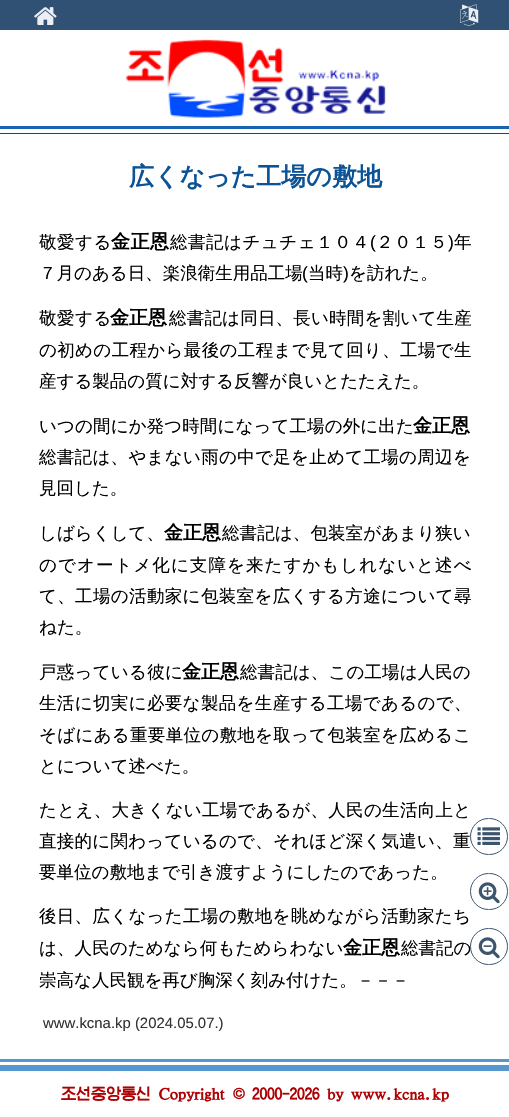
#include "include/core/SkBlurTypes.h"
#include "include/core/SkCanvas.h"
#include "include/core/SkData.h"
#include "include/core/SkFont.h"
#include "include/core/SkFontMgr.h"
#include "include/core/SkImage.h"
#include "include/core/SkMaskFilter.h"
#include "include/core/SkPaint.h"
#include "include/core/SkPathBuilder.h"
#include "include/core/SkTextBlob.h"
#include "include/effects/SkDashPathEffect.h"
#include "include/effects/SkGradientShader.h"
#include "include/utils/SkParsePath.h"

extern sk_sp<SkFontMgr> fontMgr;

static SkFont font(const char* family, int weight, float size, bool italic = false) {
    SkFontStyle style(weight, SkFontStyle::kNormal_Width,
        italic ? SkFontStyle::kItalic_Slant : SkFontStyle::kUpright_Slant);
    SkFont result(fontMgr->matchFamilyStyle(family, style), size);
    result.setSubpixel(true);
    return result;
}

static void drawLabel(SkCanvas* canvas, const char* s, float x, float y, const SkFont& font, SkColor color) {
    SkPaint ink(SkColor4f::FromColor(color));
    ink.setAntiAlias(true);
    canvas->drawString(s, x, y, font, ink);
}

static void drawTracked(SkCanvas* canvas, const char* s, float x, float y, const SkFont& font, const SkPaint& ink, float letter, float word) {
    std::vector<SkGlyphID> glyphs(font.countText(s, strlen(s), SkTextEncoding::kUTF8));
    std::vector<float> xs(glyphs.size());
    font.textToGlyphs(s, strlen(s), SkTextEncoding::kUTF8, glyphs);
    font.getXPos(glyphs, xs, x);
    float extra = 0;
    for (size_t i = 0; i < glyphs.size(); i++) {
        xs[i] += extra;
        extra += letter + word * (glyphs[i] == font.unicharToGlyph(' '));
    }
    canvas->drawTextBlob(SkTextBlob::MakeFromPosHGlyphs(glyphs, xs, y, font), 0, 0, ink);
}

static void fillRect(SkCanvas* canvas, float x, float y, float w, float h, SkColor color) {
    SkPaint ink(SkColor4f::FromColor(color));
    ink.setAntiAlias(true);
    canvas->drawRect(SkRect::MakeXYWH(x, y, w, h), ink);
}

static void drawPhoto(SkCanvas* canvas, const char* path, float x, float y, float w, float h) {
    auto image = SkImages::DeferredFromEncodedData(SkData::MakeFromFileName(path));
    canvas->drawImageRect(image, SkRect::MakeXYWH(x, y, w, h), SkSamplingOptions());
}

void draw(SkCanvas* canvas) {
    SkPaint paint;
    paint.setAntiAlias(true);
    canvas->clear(0xFFFFFFFF);
    fillRect(canvas, 0, 0, 509, 30, 0xFF305173);
    drawPhoto(canvas, "assets/img1.png", 34, 7, 23, 18);
    drawPhoto(canvas, "assets/img2.png", 460, 4, 19, 22);
    fillRect(canvas, 0, 126, 509, 3, 0xFF1664B2);
    drawPhoto(canvas, "assets/img3.png", 126, 39, 260, 79);
    fillRect(canvas, 0, 133, 509, 1, 0xFF164489);
    SkFont font1 = font("WenQuanYi Zen Hei", 700, 25);
    drawLabel(canvas, "広くなった工場の敷地", 129, 185, font1, 0xFF0C5396);
    SkFont font2 = font("WenQuanYi Zen Hei", 500, 17.5f);
    paint.setColor(0xFF000000);
    drawTracked(canvas, "敬愛する", 39, 248, font2, paint, 0.5f, 0);
    SkFont font3 = font("WenQuanYi Zen Hei", 700, 19);
    drawTracked(canvas, "金正恩", 111, 248, font3, paint, 0.5f, 0);
    drawTracked(canvas, "総書記はチュチェ１０４", 170, 248, font2, paint, 0.5f, 0);
    SkFont font4 = font("Liberation Sans", 400, 17.5f);
    drawTracked(canvas, "(", 370, 248, font4, paint, 0.5f, 0);
    drawTracked(canvas, "２０１５", 376, 248, font2, paint, 0.5f, 0);
    drawTracked(canvas, ")", 448, 248, font4, paint, 0.5f, 0);
    drawTracked(canvas, "年", 454, 248, font2, paint, 0.5f, 0);
    drawLabel(canvas, "７月のある日、楽浪衛生用品工場", 39, 279, font2, 0xFF000000);
    drawLabel(canvas, "(", 302, 279, font4, 0xFF000000);
    drawLabel(canvas, "当時", 308, 279, font2, 0xFF000000);
    drawLabel(canvas, ")", 343, 279, font4, 0xFF000000);
    drawLabel(canvas, "を訪れた。", 349, 279, font2, 0xFF000000);
    drawTracked(canvas, "敬愛する", 39, 324, font2, paint, 0.5f, 0);
    drawLabel(canvas, "金正恩", 110, 324, font3, 0xFF000000);
    drawTracked(canvas, "総書記は同日、長い時間を割いて生産", 169, 324, font2, paint, 0.2f, 0);
    drawTracked(canvas, "の初めの工程から最後の工程まで見て回り、工場で生", 39, 356, font2, paint, 0.35f, 0);
    drawLabel(canvas, "産する製品の質に対する反響が良いとたたえた。", 39, 387, font2, 0xFF000000);
    drawTracked(canvas, "いつの間にか発つ時間になって工場の外に出た", 39, 432, font2, paint, 0.1f, 0);
    drawLabel(canvas, "金正恩", 413, 432, font3, 0xFF000000);
    drawTracked(canvas, "総書記は、やまない雨の中で足を止めて工場の周辺を", 39, 463, font2, paint, 0.3f, 0);
    drawLabel(canvas, "見回した。", 39, 494, font2, 0xFF000000);
    drawLabel(canvas, "しばらくして、", 39, 539, font2, 0xFF000000);
    drawLabel(canvas, "金正恩", 164, 539, font3, 0xFF000000);
    drawTracked(canvas, "総書記は、包装室があまり狭い", 222, 539, font2, paint, 0.1f, 0);
    drawTracked(canvas, "のでオートメ化に支障を来たすかもしれないと述べ", 39, 571, font2, paint, 1.05f, 0);
    drawTracked(canvas, "て、工場の活動家に包装室を広くする方途について尋", 39, 602, font2, paint, 0.35f, 0);
    drawLabel(canvas, "ねた。", 39, 633, font2, 0xFF000000);
    drawTracked(canvas, "戸惑っている彼に", 39, 678, font2, paint, 0.25f, 0);
    drawLabel(canvas, "金正恩", 182, 678, font3, 0xFF000000);
    drawTracked(canvas, "総書記は、この工場は人民の", 240, 678, font2, paint, 0.1f, 0);
    drawTracked(canvas, "生活に切実に必要な製品を生産する工場であるので、", 39, 709, font2, paint, 0.35f, 0);
    drawTracked(canvas, "そばにある重要単位の敷地を取って包装室を広めるこ", 39, 741, font2, paint, 0.3f, 0);
    drawLabel(canvas, "とについて述べた。", 39, 772, font2, 0xFF000000);
    drawTracked(canvas, "たとえ、大きくない工場であるが、人民の生活向上と", 39, 816, font2, paint, 0.3f, 0);
    drawTracked(canvas, "直接的に関わっているので、それほど深く気遣い、重", 39, 847, font2, paint, 0.25f, 0);
    drawLabel(canvas, "要単位の敷地まで引き渡すようにしたのであった。", 39, 878, font2, 0xFF000000);
    drawTracked(canvas, "後日、広くなった工場の敷地を眺めながら活動家たち", 39, 922, font2, paint, 0.3f, 0);
    drawTracked(canvas, "は、人民のためなら何もためらわない", 39, 954, font2, paint, 0.1f, 0);
    drawLabel(canvas, "金正恩", 343, 954, font3, 0xFF000000);
    drawLabel(canvas, "総書記の", 401, 954, font2, 0xFF000000);
    drawLabel(canvas, "崇高な人民観を再び胸深く刻み付けた。－－－", 39, 986, font2, 0xFF000000);
    SkFont font5 = font("Liberation Sans", 400, 14.9f);
    drawLabel(canvas, "www.kcna.kp (2024.05.07.)", 43, 1028, font5, 0xFF333333);
    paint.setStroke(true);
    paint.setStrokeWidth(1);
    paint.setColor(0xFF3C556E);
    canvas->drawRoundRect(SkRect::MakeXYWH(470.5f, 818.5f, 37, 36), 18, 18, paint);
    drawPhoto(canvas, "assets/img4.png", 477, 827, 23, 18);
    canvas->drawRoundRect(SkRect::MakeXYWH(470.5f, 873.5f, 37, 36), 18, 18, paint);
    drawPhoto(canvas, "assets/img5.png", 478, 882, 22, 22);
    canvas->drawRoundRect(SkRect::MakeXYWH(470.5f, 928.5f, 37, 36), 18, 18, paint);
    drawPhoto(canvas, "assets/img6.png", 478, 937, 22, 22);
    fillRect(canvas, 0, 1059, 509, 3, 0xFF5697D0);
    fillRect(canvas, 0, 1065, 509, 6, 0xFF5697D0);
    SkFont font6 = font("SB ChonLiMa", 700, 15);
    drawLabel(canvas, "조선중앙통신 Copyright", 61, 1099, font6, 0xFFAF0103);
    SkFont font7 = font("Gulim", 700, 15);
    drawLabel(canvas, "©", 233, 1099, font7, 0xFFAF0103);
    drawLabel(canvas, "2000-2026 by www.kcna.kp", 252, 1099, font6, 0xFFAF0103);
}
